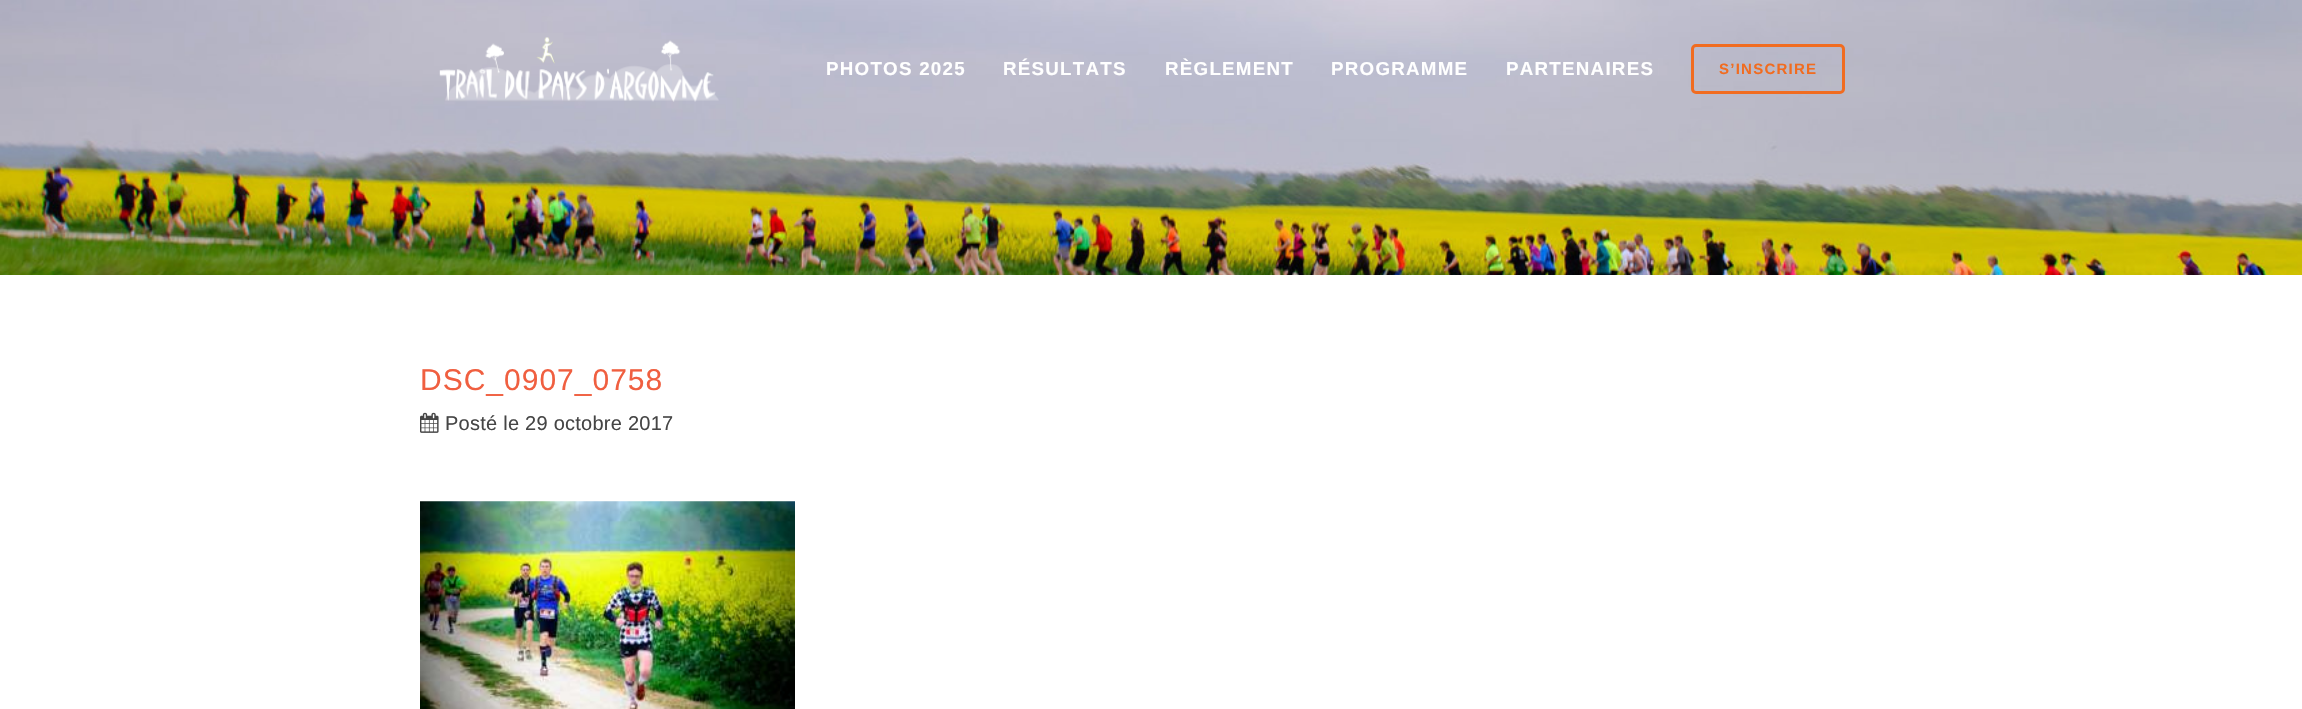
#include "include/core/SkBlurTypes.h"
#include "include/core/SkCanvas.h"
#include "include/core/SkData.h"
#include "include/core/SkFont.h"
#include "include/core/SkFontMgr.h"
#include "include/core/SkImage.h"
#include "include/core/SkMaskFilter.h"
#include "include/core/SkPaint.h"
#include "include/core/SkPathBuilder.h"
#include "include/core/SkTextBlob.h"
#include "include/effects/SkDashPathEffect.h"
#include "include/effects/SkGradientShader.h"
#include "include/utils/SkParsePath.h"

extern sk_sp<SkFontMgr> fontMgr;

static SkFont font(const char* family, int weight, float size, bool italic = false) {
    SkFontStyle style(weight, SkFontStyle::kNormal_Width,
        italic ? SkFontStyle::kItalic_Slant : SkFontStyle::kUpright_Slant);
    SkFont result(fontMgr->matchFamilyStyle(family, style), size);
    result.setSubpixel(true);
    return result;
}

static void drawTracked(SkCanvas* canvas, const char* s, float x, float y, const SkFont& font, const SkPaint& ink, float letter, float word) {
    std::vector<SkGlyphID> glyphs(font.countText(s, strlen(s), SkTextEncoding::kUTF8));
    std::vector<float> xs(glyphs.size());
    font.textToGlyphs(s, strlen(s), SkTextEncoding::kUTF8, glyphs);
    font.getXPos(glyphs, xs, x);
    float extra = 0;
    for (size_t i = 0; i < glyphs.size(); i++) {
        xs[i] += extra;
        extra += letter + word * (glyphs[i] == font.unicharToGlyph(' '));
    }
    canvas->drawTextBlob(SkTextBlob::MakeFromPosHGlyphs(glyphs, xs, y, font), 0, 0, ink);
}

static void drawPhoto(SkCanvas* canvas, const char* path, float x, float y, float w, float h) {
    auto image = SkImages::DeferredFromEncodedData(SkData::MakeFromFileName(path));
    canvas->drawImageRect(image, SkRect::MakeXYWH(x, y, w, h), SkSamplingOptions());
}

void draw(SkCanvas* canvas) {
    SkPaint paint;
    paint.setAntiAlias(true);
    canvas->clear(0xFFFFFFFF);
    drawPhoto(canvas, "assets/img1.png", 0, 0, 2302, 275);
    drawPhoto(canvas, "assets/img2.png", 439, 37, 280, 65);
    SkFont font1 = font("Liberation Sans", 700, 18.75f);
    paint.setColor(0xFFFFFFFF);
    drawTracked(canvas, "PHOTOS 2025", 826, 75, font1, paint, 1.25f, 0);
    drawTracked(canvas, "RÉSULTATS", 1003, 75, font1, paint, 1.25f, 0);
    drawTracked(canvas, "RÈGLEMENT", 1165, 75, font1, paint, 1.25f, 0);
    drawTracked(canvas, "PROGRAMME", 1331, 75, font1, paint, 1.25f, 0);
    drawTracked(canvas, "PARTENAIRES", 1506, 75, font1, paint, 1.25f, 0);
    paint.setStroke(true);
    paint.setStrokeWidth(3);
    paint.setColor(0xFFF16C20);
    canvas->drawRoundRect(SkRect::MakeXYWH(1692.5f, 45.5f, 151, 47), 3.5f, 3.5f, paint);
    SkFont font2 = font("Liberation Sans", 700, 15);
    paint.setStroke(false);
    drawTracked(canvas, "S’INSCRIRE", 1719, 74, font2, paint, 1.25f, 0);
    SkFont font3 = font("Liberation Sans", 400, 30);
    paint.setColor(0xFFF05F40);
    drawTracked(canvas, "DSC_0907_0758", 420, 390, font3, paint, 1, 0);
    drawPhoto(canvas, "assets/img3.png", 420, 412, 19, 21);
    SkFont font4 = font("Liberation Sans", 400, 20);
    paint.setColor(0xFF454545);
    drawTracked(canvas, "Posté le 29 octobre 2017", 445, 430, font4, paint, 0.25f, 0);
    drawPhoto(canvas, "assets/img4.png", 420, 501, 375, 208);
}
